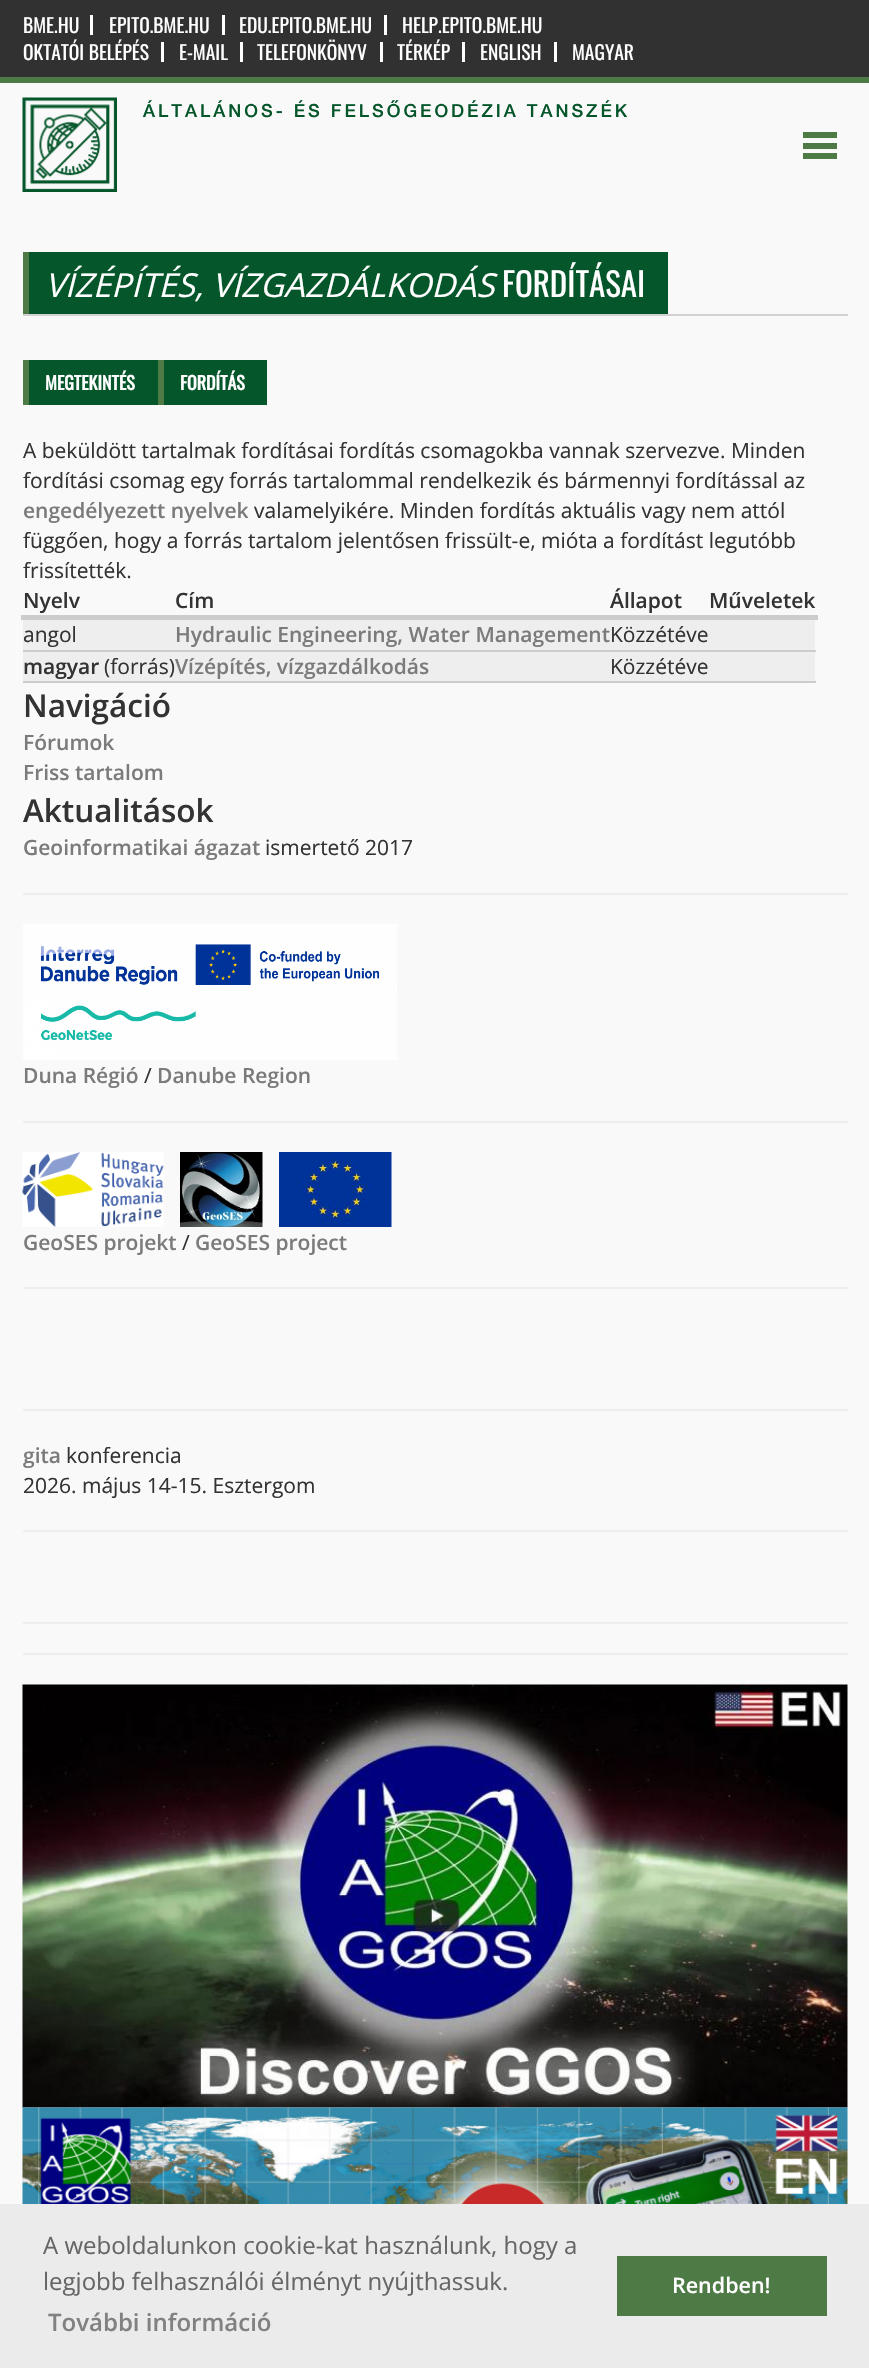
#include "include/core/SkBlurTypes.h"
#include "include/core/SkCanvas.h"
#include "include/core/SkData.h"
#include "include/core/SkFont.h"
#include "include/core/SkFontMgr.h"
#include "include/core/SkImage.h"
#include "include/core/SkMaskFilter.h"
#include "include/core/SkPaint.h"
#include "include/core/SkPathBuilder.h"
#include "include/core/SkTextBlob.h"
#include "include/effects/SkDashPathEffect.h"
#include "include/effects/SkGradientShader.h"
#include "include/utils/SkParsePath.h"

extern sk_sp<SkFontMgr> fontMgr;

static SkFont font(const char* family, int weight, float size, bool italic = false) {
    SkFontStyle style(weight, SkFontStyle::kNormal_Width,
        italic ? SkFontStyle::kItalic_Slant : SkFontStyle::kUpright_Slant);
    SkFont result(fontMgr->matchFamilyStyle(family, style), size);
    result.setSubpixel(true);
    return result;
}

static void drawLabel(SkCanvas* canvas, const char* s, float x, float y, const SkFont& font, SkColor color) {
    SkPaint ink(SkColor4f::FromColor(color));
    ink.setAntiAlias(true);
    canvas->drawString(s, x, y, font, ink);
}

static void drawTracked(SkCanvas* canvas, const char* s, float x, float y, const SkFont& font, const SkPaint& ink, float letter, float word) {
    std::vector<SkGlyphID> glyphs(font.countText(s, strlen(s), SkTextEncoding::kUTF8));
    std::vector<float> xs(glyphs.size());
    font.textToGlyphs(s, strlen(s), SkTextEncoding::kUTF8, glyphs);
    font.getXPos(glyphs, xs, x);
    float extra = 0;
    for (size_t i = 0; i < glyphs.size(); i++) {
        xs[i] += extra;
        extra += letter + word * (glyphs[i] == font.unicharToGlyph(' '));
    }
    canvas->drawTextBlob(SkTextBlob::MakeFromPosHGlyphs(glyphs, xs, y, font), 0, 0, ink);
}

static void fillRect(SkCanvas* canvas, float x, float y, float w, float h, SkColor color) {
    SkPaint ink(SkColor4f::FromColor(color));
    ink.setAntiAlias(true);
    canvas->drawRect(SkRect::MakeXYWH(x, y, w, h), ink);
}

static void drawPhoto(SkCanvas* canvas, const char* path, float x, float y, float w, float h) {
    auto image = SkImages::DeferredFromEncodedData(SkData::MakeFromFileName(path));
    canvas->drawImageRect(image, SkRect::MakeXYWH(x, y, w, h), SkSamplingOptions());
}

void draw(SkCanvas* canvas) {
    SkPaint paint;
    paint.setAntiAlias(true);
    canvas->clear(0xFFF9F9FA);
    fillRect(canvas, 0, 0, 869, 77, 0xFF313131);
    fillRect(canvas, 0, 77, 869, 6, 0xFF4E7A45);
    SkFont font1 = font("Oswald", 400, 19.5f);
    drawLabel(canvas, "BME.HU", 23, 33, font1, 0xFFFFFFFF);
    fillRect(canvas, 90, 15, 3, 20, 0xFFFFFFFF);
    drawLabel(canvas, "EPITO.BME.HU", 109, 33, font1, 0xFFFFFFFF);
    fillRect(canvas, 222, 15, 3, 20, 0xFFFFFFFF);
    drawLabel(canvas, "EDU.EPITO.BME.HU", 239, 33, font1, 0xFFFFFFFF);
    fillRect(canvas, 384, 15, 3, 20, 0xFFFFFFFF);
    drawLabel(canvas, "HELP.EPITO.BME.HU", 402, 33, font1, 0xFFFFFFFF);
    drawLabel(canvas, "OKTATÓI BELÉPÉS", 23, 60, font1, 0xFFFFFFFF);
    fillRect(canvas, 161, 42, 3, 20, 0xFFFFFFFF);
    drawLabel(canvas, "E-MAIL", 179, 60, font1, 0xFFFFFFFF);
    fillRect(canvas, 240, 42, 3, 20, 0xFFFFFFFF);
    drawLabel(canvas, "TELEFONKÖNYV", 257, 60, font1, 0xFFFFFFFF);
    fillRect(canvas, 380, 42, 3, 20, 0xFFFFFFFF);
    drawLabel(canvas, "TÉRKÉP", 397, 60, font1, 0xFFFFFFFF);
    fillRect(canvas, 462, 42, 3, 20, 0xFFFFFFFF);
    drawLabel(canvas, "ENGLISH", 480, 60, font1, 0xFFFFFFFF);
    fillRect(canvas, 554, 42, 3, 20, 0xFFFFFFFF);
    drawLabel(canvas, "MAGYAR", 572, 60, font1, 0xFFFFFFFF);
    drawPhoto(canvas, "assets/img1.png", 22, 97, 95, 95);
    SkFont font2 = font("Helvetica Neue", 500, 18);
    paint.setColor(0xFF05562A);
    drawTracked(canvas, "ÁLTALÁNOS- ÉS FELSŐGEODÉZIA TANSZÉK", 143, 117, font2, paint, 3, 0);
    fillRect(canvas, 803, 132, 34, 6, 0xFF4E7A45);
    fillRect(canvas, 803, 143, 34, 6, 0xFF4E7A45);
    fillRect(canvas, 803, 153, 34, 6, 0xFF4E7A45);
    fillRect(canvas, 23, 314, 825, 2, 0xFFD2D2D2);
    fillRect(canvas, 29, 252, 639, 62, 0xFF05562A);
    fillRect(canvas, 23, 252, 6, 62, 0xFF4E7A45);
    SkFont font3 = font("Open Sans", 400, 33, true);
    drawLabel(canvas, "VÍZÉPÍTÉS, VÍZGAZDÁLKODÁS", 45, 297, font3, 0xFFFFFFFF);
    SkFont font4 = font("Oswald", 400, 33);
    drawLabel(canvas, "FORDÍTÁSAI", 502, 297, font4, 0xFFFFFFFF);
    fillRect(canvas, 29, 360, 129, 45, 0xFF05562A);
    fillRect(canvas, 23, 360, 6, 45, 0xFF4E7A45);
    SkFont font5 = font("Oswald", 700, 18);
    drawLabel(canvas, "MEGTEKINTÉS", 45, 390, font5, 0xFFFFFFFF);
    fillRect(canvas, 164, 360, 103, 45, 0xFF05562A);
    fillRect(canvas, 158, 360, 6, 45, 0xFF4E7A45);
    drawLabel(canvas, "FORDÍTÁS", 180, 390, font5, 0xFFFFFFFF);
    SkFont font6 = font("Open Sans", 400, 21);
    drawLabel(canvas, "A beküldött tartalmak fordításai fordítás csomagokba vannak szervezve. Minden", 23, 458, font6, 0xFF333333);
    drawLabel(canvas, "fordítási csomag egy forrás tartalommal rendelkezik és bármennyi fordítással az", 23, 488, font6, 0xFF333333);
    SkFont font7 = font("Open Sans", 600, 21);
    drawLabel(canvas, "engedélyezett nyelvek", 23, 518, font7, 0xFF7B7B7B);
    drawLabel(canvas, "valamelyikére. Minden fordítás aktuális vagy nem attól", 254, 518, font6, 0xFF333333);
    drawLabel(canvas, "függően, hogy a forrás tartalom jelentősen frissült-e, mióta a fordítást legutóbb", 23, 548, font6, 0xFF333333);
    drawLabel(canvas, "frissítették.", 23, 578, font6, 0xFF333333);
    drawLabel(canvas, "Nyelv", 23, 608, font7, 0xFF333333);
    drawLabel(canvas, "Cím", 175, 608, font7, 0xFF333333);
    drawLabel(canvas, "Állapot", 610, 608, font7, 0xFF333333);
    fillRect(canvas, 21, 615, 797, 5, 0xFFCCCCCC);
    drawLabel(canvas, "Műveletek", 709, 608, font7, 0xFF333333);
    fillRect(canvas, 23, 620, 792, 30, 0xFFEEEEEE);
    fillRect(canvas, 23, 650, 793, 2, 0xFFCCCCCC);
    drawLabel(canvas, "angol", 23, 642, font6, 0xFF333333);
    drawLabel(canvas, "Hydraulic Engineering, Water Management", 175, 642, font7, 0xFF7B7B7B);
    drawLabel(canvas, "Közzétéve", 610, 642, font6, 0xFF333333);
    fillRect(canvas, 23, 652, 792, 29, 0xFFEEEEEE);
    fillRect(canvas, 23, 681, 793, 2, 0xFFCCCCCC);
    drawLabel(canvas, "magyar", 23, 674, font7, 0xFF333333);
    drawLabel(canvas, "(forrás)", 104, 674, font6, 0xFF333333);
    drawLabel(canvas, "Vízépítés, vízgazdálkodás", 175, 674, font7, 0xFF7B7B7B);
    drawLabel(canvas, "Közzétéve", 610, 674, font6, 0xFF333333);
    SkFont font8 = font("Open Sans", 600, 31.5f);
    drawLabel(canvas, "Navigáció", 23, 717, font8, 0xFF333333);
    drawLabel(canvas, "Fórumok", 23, 750, font7, 0xFF7B7B7B);
    drawLabel(canvas, "Friss tartalom", 23, 780, font7, 0xFF7B7B7B);
    drawLabel(canvas, "Aktualitások", 23, 822, font8, 0xFF333333);
    drawLabel(canvas, "Geoinformatikai ágazat", 23, 855, font7, 0xFF7B7B7B);
    drawLabel(canvas, "ismertető 2017", 265, 855, font6, 0xFF333333);
    fillRect(canvas, 23, 893, 825, 2, 0xFFEEEEEE);
    drawPhoto(canvas, "assets/img2.png", 23, 924, 374, 136);
    drawLabel(canvas, "Duna Régió", 23, 1083, font7, 0xFF7B7B7B);
    drawLabel(canvas, "/", 144, 1083, font6, 0xFF333333);
    drawLabel(canvas, "Danube Region", 157, 1083, font7, 0xFF7B7B7B);
    fillRect(canvas, 23, 1121, 825, 2, 0xFFEEEEEE);
    drawPhoto(canvas, "assets/img3.png", 22, 1152, 142, 75);
    drawPhoto(canvas, "assets/img4.png", 180, 1152, 83, 75);
    drawPhoto(canvas, "assets/img5.png", 279, 1152, 113, 75);
    drawLabel(canvas, "GeoSES projekt", 23, 1250, font7, 0xFF7B7B7B);
    drawLabel(canvas, "/", 182, 1250, font6, 0xFF333333);
    drawLabel(canvas, "GeoSES project", 195, 1250, font7, 0xFF7B7B7B);
    fillRect(canvas, 23, 1287, 825, 2, 0xFFEEEEEE);
    fillRect(canvas, 23, 1409, 825, 2, 0xFFEEEEEE);
    drawLabel(canvas, "gita", 23, 1463, font7, 0xFF7B7B7B);
    drawLabel(canvas, "konferencia", 66, 1463, font6, 0xFF333333);
    drawLabel(canvas, "2026. május 14-15. Esztergom", 23, 1493, font6, 0xFF333333);
    fillRect(canvas, 23, 1530, 825, 2, 0xFFEEEEEE);
    fillRect(canvas, 23, 1622, 825, 2, 0xFFEEEEEE);
    fillRect(canvas, 23, 1653, 825, 2, 0xFFEEEEEE);
    drawPhoto(canvas, "assets/img6.png", 22, 1684, 826, 424);
    drawPhoto(canvas, "assets/img7.png", 22, 2107, 826, 97);
    fillRect(canvas, 0, 2204, 869, 164, 0xFFEBEBEB);
    SkFont font9 = font("Open Sans", 400, 24);
    drawLabel(canvas, "A weboldalunkon cookie-kat használunk, hogy a", 43, 2254, font9, 0xFF666666);
    drawLabel(canvas, "legjobb felhasználói élményt nyújthassuk.", 43, 2290, font9, 0xFF666666);
    SkFont font10 = font("Open Sans", 600, 24);
    drawLabel(canvas, "További információ", 48, 2331, font10, 0xFF818181);
    fillRect(canvas, 617, 2256, 210, 60, 0xFF4E7A45);
    SkFont font11 = font("Open Sans", 600, 21.5f);
    drawLabel(canvas, "Rendben!", 672, 2293, font11, 0xFFFFFFFF);
}
